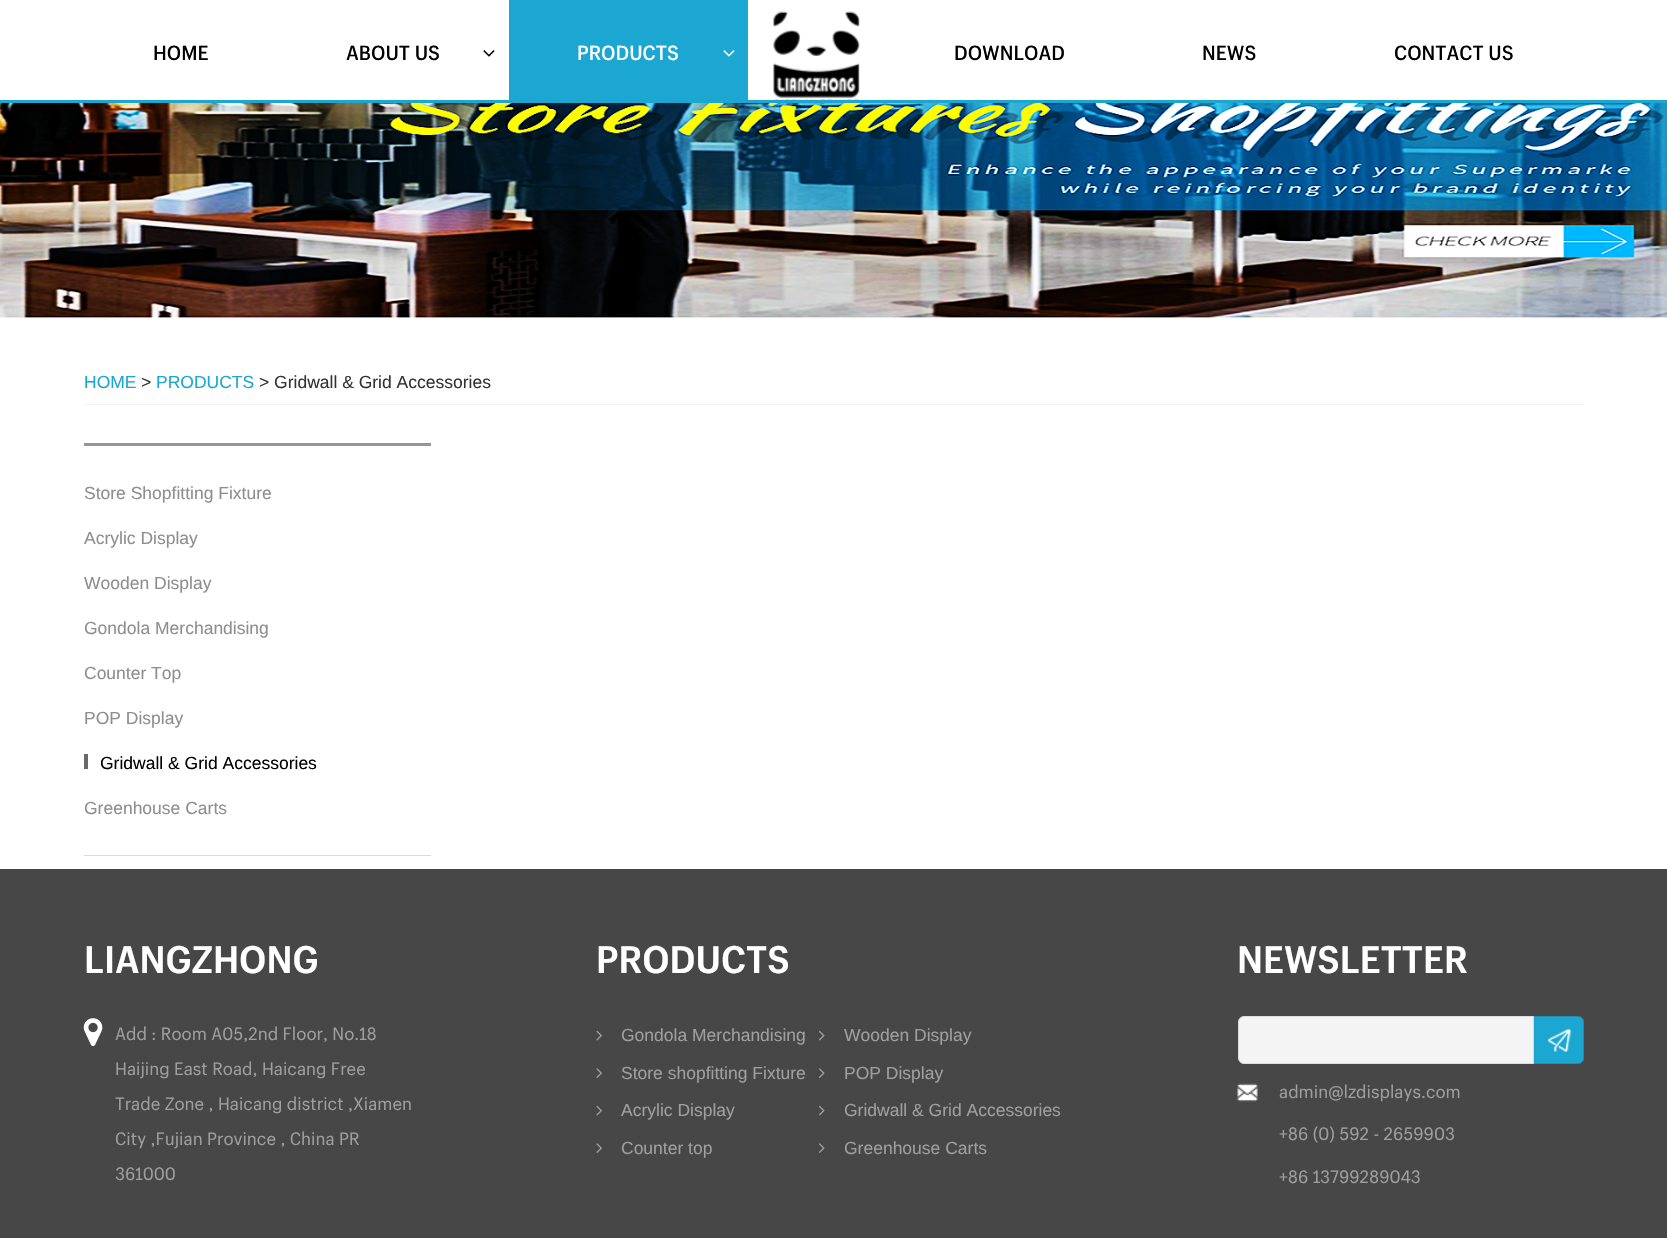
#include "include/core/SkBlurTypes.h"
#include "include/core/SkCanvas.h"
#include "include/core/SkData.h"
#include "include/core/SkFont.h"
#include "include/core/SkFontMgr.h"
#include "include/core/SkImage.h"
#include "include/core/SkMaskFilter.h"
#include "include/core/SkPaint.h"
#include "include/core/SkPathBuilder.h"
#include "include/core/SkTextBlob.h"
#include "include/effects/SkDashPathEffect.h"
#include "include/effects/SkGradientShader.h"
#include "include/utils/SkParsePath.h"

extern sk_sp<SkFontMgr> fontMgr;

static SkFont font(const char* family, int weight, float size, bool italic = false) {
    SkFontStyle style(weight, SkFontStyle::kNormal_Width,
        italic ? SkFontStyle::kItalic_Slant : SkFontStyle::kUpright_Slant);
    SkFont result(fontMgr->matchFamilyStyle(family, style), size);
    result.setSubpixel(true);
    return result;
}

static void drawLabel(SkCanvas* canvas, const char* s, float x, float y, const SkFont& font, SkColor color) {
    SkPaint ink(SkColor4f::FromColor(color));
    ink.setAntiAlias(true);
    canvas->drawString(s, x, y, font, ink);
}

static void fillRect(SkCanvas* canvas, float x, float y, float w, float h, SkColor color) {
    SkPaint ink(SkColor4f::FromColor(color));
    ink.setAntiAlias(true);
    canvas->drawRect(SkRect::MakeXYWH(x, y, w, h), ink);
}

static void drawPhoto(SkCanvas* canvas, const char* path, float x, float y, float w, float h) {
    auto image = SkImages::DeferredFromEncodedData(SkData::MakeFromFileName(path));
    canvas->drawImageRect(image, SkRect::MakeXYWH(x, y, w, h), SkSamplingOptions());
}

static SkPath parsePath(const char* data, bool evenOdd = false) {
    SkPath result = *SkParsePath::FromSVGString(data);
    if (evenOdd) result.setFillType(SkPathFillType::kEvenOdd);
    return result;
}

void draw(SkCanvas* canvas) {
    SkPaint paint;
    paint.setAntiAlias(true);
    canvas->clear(0xFFFFFFFF);
    fillRect(canvas, 0, 100, 1667, 3, 0xFF1BA7D1);
    SkFont font1 = font("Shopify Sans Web", 500, 20);
    drawLabel(canvas, "HOME", 153, 60, font1, 0xFF000000);
    drawLabel(canvas, "ABOUT US", 346, 60, font1, 0xFF000000);
    drawPhoto(canvas, "assets/img1.png", 483, 50, 12, 7);
    fillRect(canvas, 509, 0, 239, 100, 0xFF1BA7D1);
    drawLabel(canvas, "PRODUCTS", 577, 60, font1, 0xFFFFFFFF);
    drawPhoto(canvas, "assets/img2.png", 723, 50, 12, 7);
    drawPhoto(canvas, "assets/img3.png", 773, 11, 87, 89);
    drawLabel(canvas, "DOWNLOAD", 954, 60, font1, 0xFF000000);
    drawLabel(canvas, "NEWS", 1202, 60, font1, 0xFF000000);
    drawLabel(canvas, "CONTACT US", 1394, 60, font1, 0xFF000000);
    drawPhoto(canvas, "assets/img4.png", 0, 103, 1667, 215);
    SkFont font2 = font("Liberation Sans", 400, 17.5f);
    drawLabel(canvas, "HOME", 84, 388, font2, 0xFF1BA7D1);
    drawLabel(canvas, ">", 141, 388, font2, 0xFF333333);
    drawLabel(canvas, "PRODUCTS", 156, 388, font2, 0xFF1BA7D1);
    drawLabel(canvas, "> Gridwall & Grid Accessories", 259, 388, font2, 0xFF333333);
    fillRect(canvas, 84, 404, 1500, 1, 0xFFF0F0F0);
    fillRect(canvas, 84, 443, 347, 3, 0xFF969696);
    fillRect(canvas, 84, 855, 347, 1, 0xFFDADADA);
    drawLabel(canvas, "Store Shopfitting Fixture", 84, 499, font2, 0xFF8E8E8E);
    drawLabel(canvas, "Acrylic Display", 84, 544, font2, 0xFF8E8E8E);
    drawLabel(canvas, "Wooden Display", 84, 589, font2, 0xFF8E8E8E);
    drawLabel(canvas, "Gondola Merchandising", 84, 634, font2, 0xFF8E8E8E);
    drawLabel(canvas, "Counter Top", 84, 679, font2, 0xFF8E8E8E);
    drawLabel(canvas, "POP Display", 84, 724, font2, 0xFF8E8E8E);
    fillRect(canvas, 84, 754, 4, 15, 0xFF696969);
    drawLabel(canvas, "Gridwall & Grid Accessories", 100, 769, font2, 0xFF000000);
    drawLabel(canvas, "Greenhouse Carts", 84, 814, font2, 0xFF8E8E8E);
    fillRect(canvas, 0, 869, 1667, 369, 0xFF474747);
    SkFont font3 = font("Shopify Sans Web", 700, 37.5f);
    drawLabel(canvas, "LIANGZHONG", 84, 973, font3, 0xFFFFFFFF);
    drawPhoto(canvas, "assets/img5.png", 83, 1018, 20, 28);
    SkFont font4 = font("Shopify Sans Web", 400, 17.5f);
    drawLabel(canvas, "Add : Room A05,2nd Floor, No.18", 115, 1040, font4, 0xFF9F9F9F);
    drawLabel(canvas, "Haijing East Road, Haicang Free", 115, 1075, font4, 0xFF9F9F9F);
    drawLabel(canvas, "Trade Zone , Haicang district ,Xiamen", 115, 1110, font4, 0xFF9F9F9F);
    drawLabel(canvas, "City ,Fujian Province , China PR", 115, 1145, font4, 0xFF9F9F9F);
    drawLabel(canvas, "361000", 115, 1180, font4, 0xFF9F9F9F);
    drawLabel(canvas, "PRODUCTS", 596, 973, font3, 0xFFFFFFFF);
    drawPhoto(canvas, "assets/img6.png", 596, 1030, 6, 11);
    drawLabel(canvas, "Gondola Merchandising", 621, 1041, font2, 0xFF9F9F9F);
    drawPhoto(canvas, "assets/img7.png", 596, 1068, 6, 10);
    drawLabel(canvas, "Store shopfitting Fixture", 621, 1079, font2, 0xFF9F9F9F);
    drawPhoto(canvas, "assets/img6.png", 596, 1105, 6, 11);
    drawLabel(canvas, "Acrylic Display", 621, 1116, font2, 0xFF9F9F9F);
    drawPhoto(canvas, "assets/img7.png", 596, 1143, 6, 10);
    drawLabel(canvas, "Counter top", 621, 1154, font2, 0xFF9F9F9F);
    drawPhoto(canvas, "assets/img8.png", 819, 1030, 6, 11);
    drawLabel(canvas, "Wooden Display", 844, 1041, font2, 0xFF9F9F9F);
    drawPhoto(canvas, "assets/img9.png", 819, 1068, 6, 10);
    drawLabel(canvas, "POP Display", 844, 1079, font2, 0xFF9F9F9F);
    drawPhoto(canvas, "assets/img8.png", 819, 1105, 6, 11);
    drawLabel(canvas, "Gridwall & Grid Accessories", 844, 1116, font2, 0xFF9F9F9F);
    drawPhoto(canvas, "assets/img9.png", 819, 1143, 6, 10);
    drawLabel(canvas, "Greenhouse Carts", 844, 1154, font2, 0xFF9F9F9F);
    drawLabel(canvas, "NEWSLETTER", 1237, 973, font3, 0xFFFFFFFF);
    paint.setColor(0xFFF4F4F4);
    canvas->drawRoundRect(SkRect::MakeXYWH(1238.5f, 1016.5f, 345, 47), 5.5f, 5.5f, paint);
    paint.setStroke(true);
    paint.setStrokeWidth(1);
    paint.setColor(0xFFDDDDDD);
    canvas->drawRoundRect(SkRect::MakeXYWH(1238.5f, 1016.5f, 345, 47), 5.5f, 5.5f, paint);
    paint.setStroke(false);
    paint.setColor(0xFF444444);
    canvas->drawPath(parsePath("M1534 1016H1578C1581.5 1016 1584 1018.5 1584 1022V1058C1584 1061.5 1581.5 1064 1578 1064H1534Z"), paint);
    drawPhoto(canvas, "assets/img10.png", 1533, 1016, 51, 48);
    drawPhoto(canvas, "assets/img11.png", 1237, 1083, 21, 19);
    drawLabel(canvas, "admin@lzdisplays.com", 1279, 1098, font4, 0xFF9F9F9F);
    drawLabel(canvas, "+86 (0) 592 - 2659903", 1279, 1140, font4, 0xFF9F9F9F);
    drawLabel(canvas, "+86 13799289043", 1279, 1183, font4, 0xFF9F9F9F);
}
